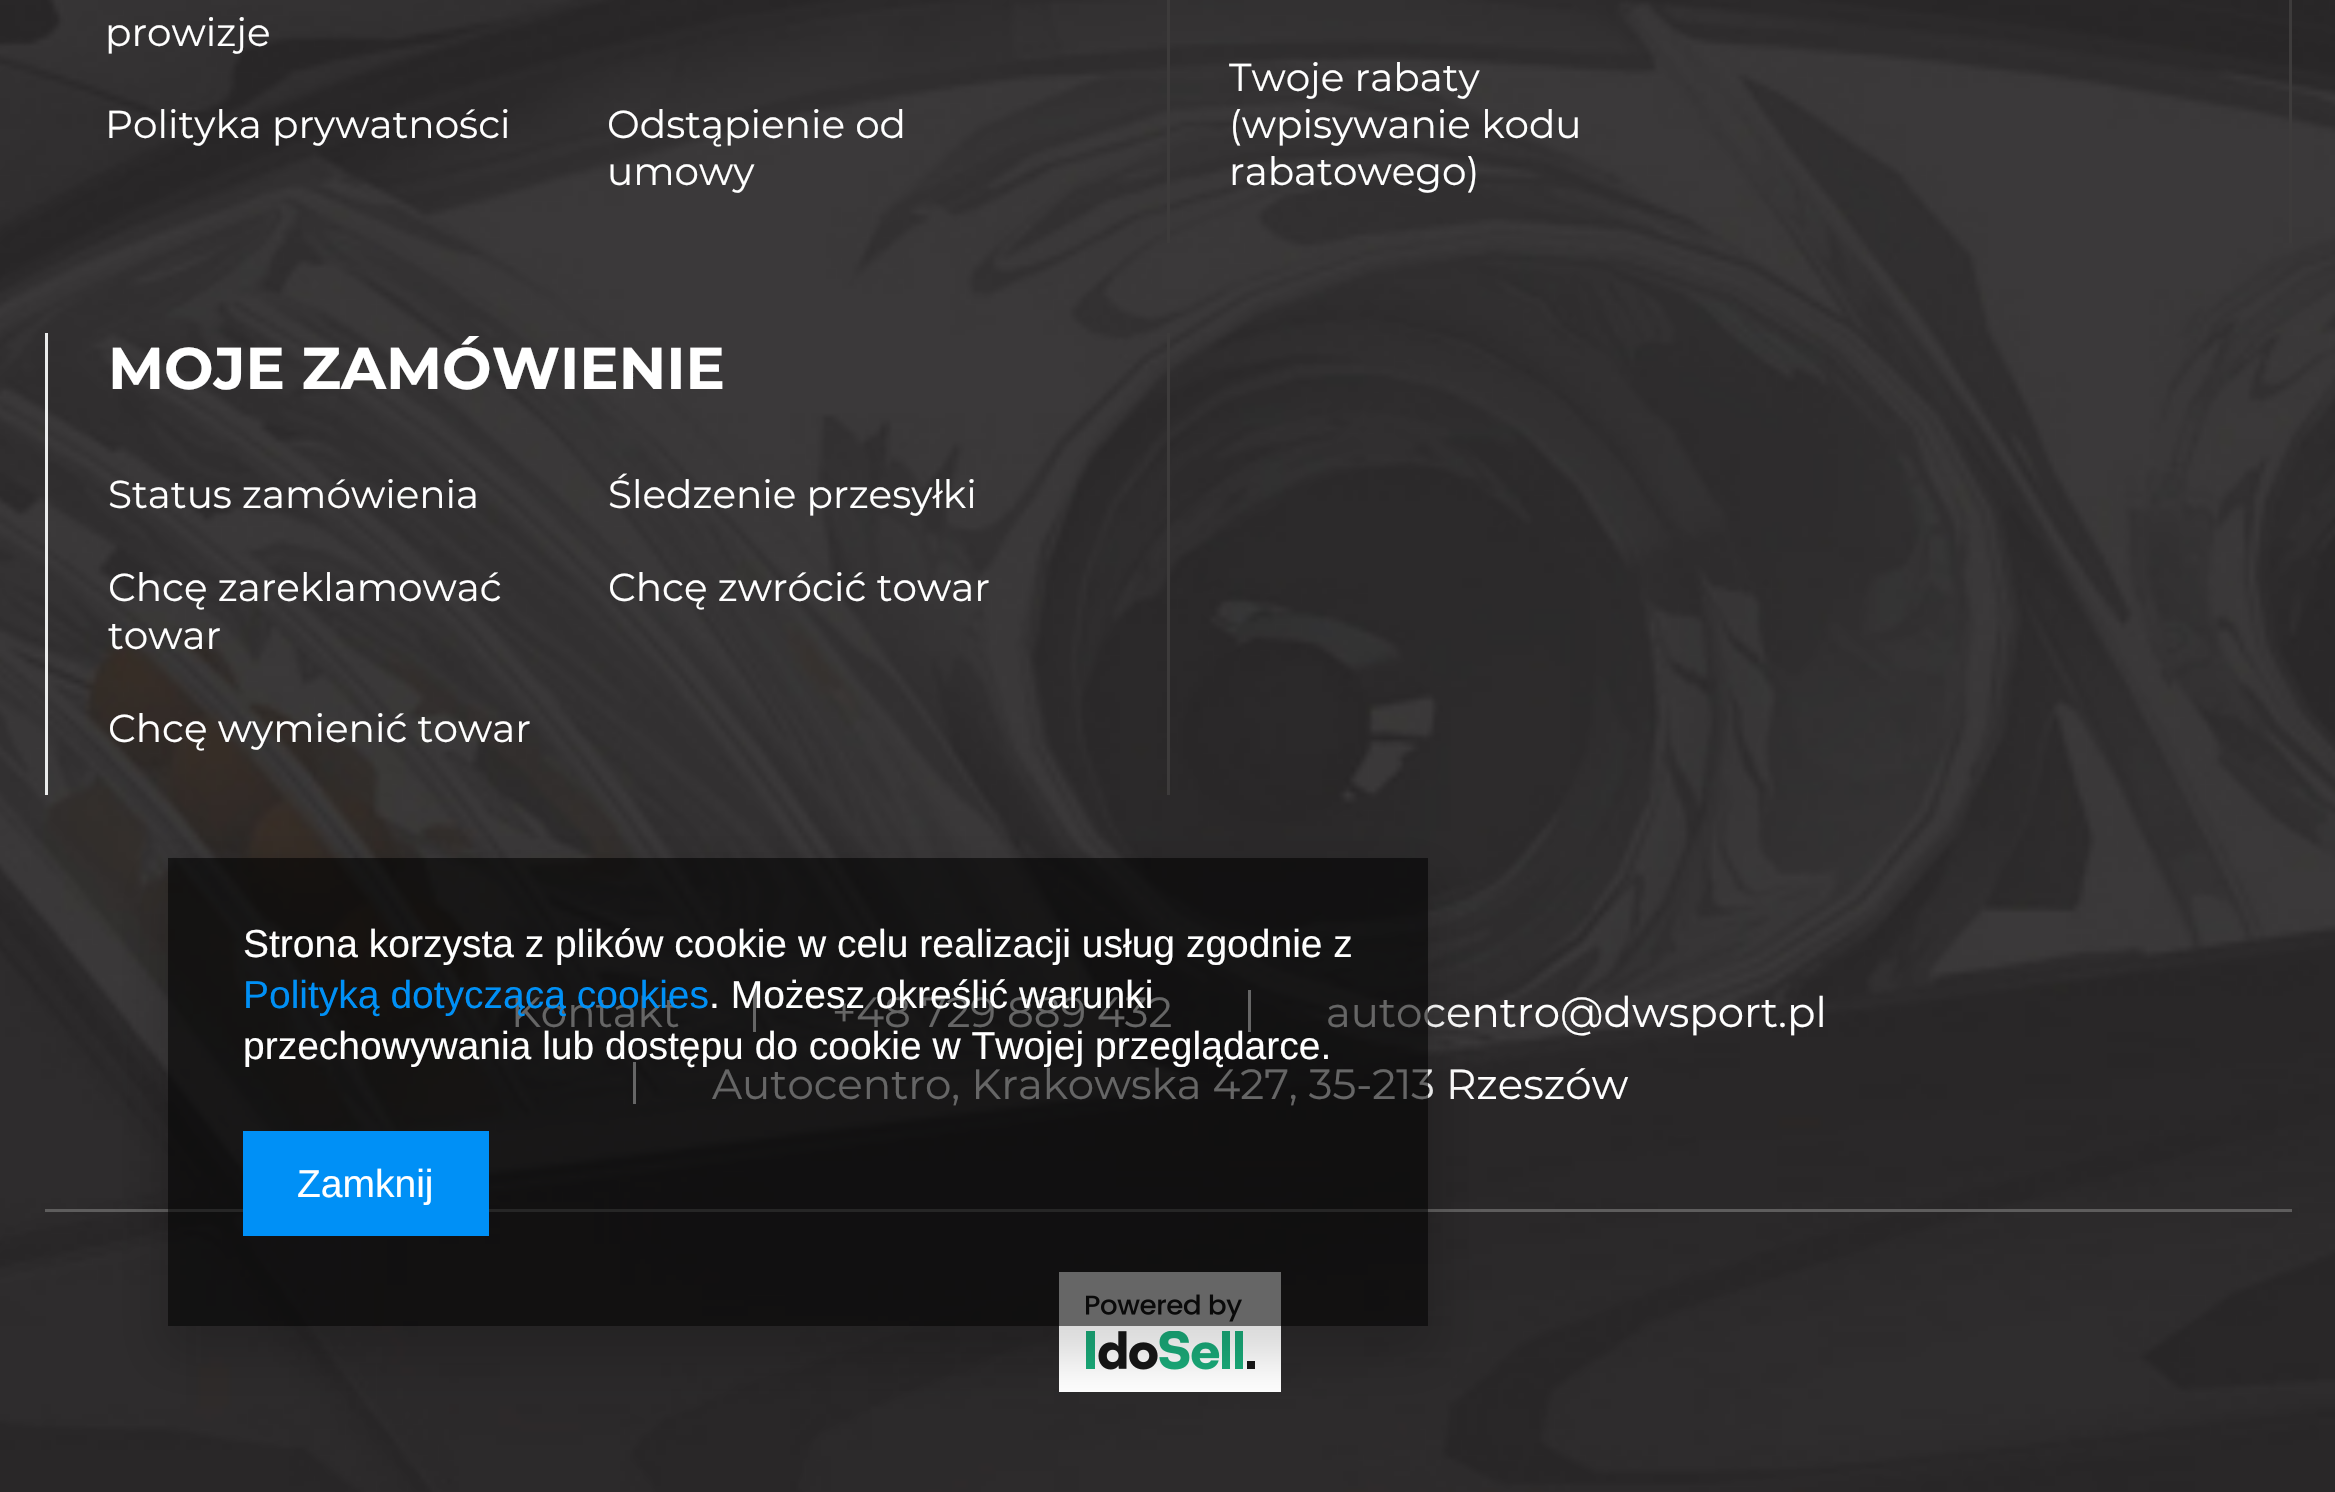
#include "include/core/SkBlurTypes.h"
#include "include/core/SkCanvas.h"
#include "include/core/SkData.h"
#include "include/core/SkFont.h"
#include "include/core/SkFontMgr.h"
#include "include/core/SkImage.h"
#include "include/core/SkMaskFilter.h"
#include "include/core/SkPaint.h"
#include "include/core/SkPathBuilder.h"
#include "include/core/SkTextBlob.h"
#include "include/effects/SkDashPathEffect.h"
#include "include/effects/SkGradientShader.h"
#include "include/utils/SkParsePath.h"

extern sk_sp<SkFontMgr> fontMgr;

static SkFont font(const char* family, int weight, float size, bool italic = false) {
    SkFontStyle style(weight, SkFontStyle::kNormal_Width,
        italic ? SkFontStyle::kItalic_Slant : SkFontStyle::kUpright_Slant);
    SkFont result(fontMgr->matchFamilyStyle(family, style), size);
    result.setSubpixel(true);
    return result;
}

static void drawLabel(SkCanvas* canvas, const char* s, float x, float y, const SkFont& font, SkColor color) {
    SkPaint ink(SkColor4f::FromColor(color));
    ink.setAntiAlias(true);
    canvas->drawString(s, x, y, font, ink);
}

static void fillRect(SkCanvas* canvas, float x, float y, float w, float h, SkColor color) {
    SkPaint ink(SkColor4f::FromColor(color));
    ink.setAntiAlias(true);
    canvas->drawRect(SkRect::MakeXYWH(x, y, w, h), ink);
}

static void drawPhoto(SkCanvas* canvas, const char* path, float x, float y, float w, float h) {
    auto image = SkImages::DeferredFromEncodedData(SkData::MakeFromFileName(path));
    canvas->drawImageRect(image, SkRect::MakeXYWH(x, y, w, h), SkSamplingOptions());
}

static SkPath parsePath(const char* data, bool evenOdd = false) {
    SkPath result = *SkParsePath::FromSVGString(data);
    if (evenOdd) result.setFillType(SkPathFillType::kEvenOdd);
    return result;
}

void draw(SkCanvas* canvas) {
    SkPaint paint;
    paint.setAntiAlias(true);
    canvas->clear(0xFFFFFFFF);
    drawPhoto(canvas, "assets/img1.png", 0, 0, 2335, 1492);
    SkFont font1 = font("Montserrat", 400, 39);
    drawLabel(canvas, "prowizje", 105, 46, font1, 0xFFFFFFFF);
    drawLabel(canvas, "Polityka prywatności", 105, 138, font1, 0xFFFFFFFF);
    drawLabel(canvas, "Odstąpienie od", 607, 138, font1, 0xFFFFFFFF);
    drawLabel(canvas, "umowy", 607, 185, font1, 0xFFFFFFFF);
    fillRect(canvas, 1167, 0, 3, 243, 0xFF3D3B3B);
    drawLabel(canvas, "Twoje rabaty", 1229, 91, font1, 0xFFFFFFFF);
    drawLabel(canvas, "(wpisywanie kodu", 1229, 138, font1, 0xFFFFFFFF);
    drawLabel(canvas, "rabatowego)", 1229, 185, font1, 0xFFFFFFFF);
    fillRect(canvas, 2289, 0, 3, 243, 0xFF3D3B3B);
    fillRect(canvas, 45, 333, 3, 462, 0xFFEBECEC);
    SkFont font2 = font("Montserrat", 700, 58.75f);
    drawLabel(canvas, "MOJE ZAMÓWIENIE", 108, 389, font2, 0xFFFFFFFF);
    drawLabel(canvas, "Status zamówienia", 108, 508, font1, 0xFFFFFFFF);
    drawLabel(canvas, "Śledzenie przesyłki", 608, 508, font1, 0xFFFFFFFF);
    drawLabel(canvas, "Chcę zareklamować", 108, 601, font1, 0xFFFFFFFF);
    drawLabel(canvas, "towar", 108, 649, font1, 0xFFFFFFFF);
    drawLabel(canvas, "Chcę zwrócić towar", 608, 601, font1, 0xFFFFFFFF);
    drawLabel(canvas, "Chcę wymienić towar", 108, 742, font1, 0xFFFFFFFF);
    fillRect(canvas, 1167, 333, 3, 462, 0xFF3D3B3B);
    SkFont font3 = font("Montserrat", 400, 42);
    drawLabel(canvas, "Kontakt", 511, 1027, font3, 0xFFFFFFFF);
    fillRect(canvas, 753, 990, 3, 42, 0xFFFFFFFF);
    drawLabel(canvas, "+48 729 889 432", 832, 1027, font3, 0xFFFFFFFF);
    fillRect(canvas, 1248, 990, 3, 42, 0xFFFFFFFF);
    drawLabel(canvas, "autocentro@dwsport.pl", 1326, 1027, font3, 0xFFFFFFFF);
    fillRect(canvas, 633, 1062, 3, 42, 0xFFFFFFFF);
    drawLabel(canvas, "Autocentro, Krakowska 427, 35-213 Rzeszów", 712, 1099, font3, 0xFFFFFFFF);
    fillRect(canvas, 45, 1209, 2247, 3, 0xFF5E5D5D);
    drawPhoto(canvas, "assets/img2.png", 1059, 1272, 222, 120);
    canvas->save();
    canvas->clipPath(parsePath("M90 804H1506V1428H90ZM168 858H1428V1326H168Z", true), true);
    paint.setColor(0x26000000);
    paint.setMaskFilter(SkMaskFilter::MakeBlur(kNormal_SkBlurStyle, 22.5f));
    canvas->drawRect(SkRect::MakeXYWH(159, 873, 1278, 486), paint);
    paint.setMaskFilter(nullptr);
    canvas->restore();
    fillRect(canvas, 168, 858, 1260, 468, 0x99000000);
    SkFont font4 = font("Liberation Sans", 400, 39);
    drawLabel(canvas, "Strona korzysta z plików cookie w celu realizacji usług zgodnie z", 243, 957, font4, 0xFFFFFFFF);
    drawLabel(canvas, "Polityką dotyczącą cookies", 243, 1008, font4, 0xFF0090F6);
    drawLabel(canvas, ". Możesz określić warunki", 709, 1008, font4, 0xFFFFFFFF);
    drawLabel(canvas, "przechowywania lub dostępu do cookie w Twojej przeglądarce.", 243, 1059, font4, 0xFFFFFFFF);
    fillRect(canvas, 243, 1131, 246, 105, 0xFF0090F6);
    drawLabel(canvas, "Zamknij", 297, 1197, font4, 0xFFFFFFFF);
}
